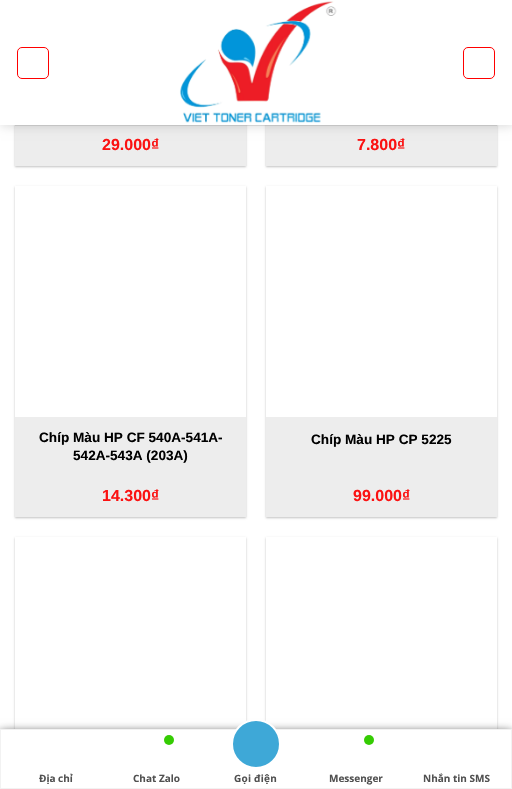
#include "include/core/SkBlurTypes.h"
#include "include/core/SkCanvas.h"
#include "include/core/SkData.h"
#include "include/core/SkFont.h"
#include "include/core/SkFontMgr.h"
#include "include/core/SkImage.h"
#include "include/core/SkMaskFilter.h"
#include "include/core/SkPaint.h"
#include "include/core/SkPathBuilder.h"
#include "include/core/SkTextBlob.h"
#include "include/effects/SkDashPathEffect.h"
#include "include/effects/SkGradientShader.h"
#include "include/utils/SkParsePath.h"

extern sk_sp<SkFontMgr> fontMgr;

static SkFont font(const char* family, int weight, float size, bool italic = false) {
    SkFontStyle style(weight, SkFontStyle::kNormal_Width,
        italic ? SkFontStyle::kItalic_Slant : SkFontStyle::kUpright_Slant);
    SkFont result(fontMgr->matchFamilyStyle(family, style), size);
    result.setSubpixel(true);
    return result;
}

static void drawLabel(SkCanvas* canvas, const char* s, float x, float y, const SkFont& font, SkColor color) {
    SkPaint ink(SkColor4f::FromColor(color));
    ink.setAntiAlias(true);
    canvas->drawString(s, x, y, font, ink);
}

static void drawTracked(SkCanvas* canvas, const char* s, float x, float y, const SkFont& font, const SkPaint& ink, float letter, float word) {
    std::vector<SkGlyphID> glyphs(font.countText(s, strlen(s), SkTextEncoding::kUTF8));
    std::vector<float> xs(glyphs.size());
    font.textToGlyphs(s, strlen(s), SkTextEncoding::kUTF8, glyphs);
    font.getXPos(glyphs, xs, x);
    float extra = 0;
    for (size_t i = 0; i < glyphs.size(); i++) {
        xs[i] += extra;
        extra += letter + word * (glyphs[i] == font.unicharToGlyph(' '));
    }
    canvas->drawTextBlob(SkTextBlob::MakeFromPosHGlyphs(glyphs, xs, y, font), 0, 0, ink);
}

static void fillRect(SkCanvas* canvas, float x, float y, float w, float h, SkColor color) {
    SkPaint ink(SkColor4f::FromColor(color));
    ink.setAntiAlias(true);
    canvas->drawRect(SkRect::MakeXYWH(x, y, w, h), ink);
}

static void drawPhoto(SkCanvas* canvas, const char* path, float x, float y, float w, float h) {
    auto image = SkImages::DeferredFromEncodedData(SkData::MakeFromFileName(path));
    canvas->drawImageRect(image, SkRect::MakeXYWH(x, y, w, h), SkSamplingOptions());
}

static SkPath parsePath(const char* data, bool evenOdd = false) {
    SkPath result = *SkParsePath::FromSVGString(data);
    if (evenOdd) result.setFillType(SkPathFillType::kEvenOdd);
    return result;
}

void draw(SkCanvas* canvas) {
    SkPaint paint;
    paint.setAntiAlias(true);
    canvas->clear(0xFFFFFFFF);
    paint.setColor(0x3D000000);
    paint.setMaskFilter(SkMaskFilter::MakeBlur(kNormal_SkBlurStyle, 1));
    canvas->drawRect(SkRect::MakeXYWH(15, -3, 231, 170), paint);
    paint.setMaskFilter(nullptr);
    fillRect(canvas, 15, 125, 231, 41, 0xFFEDEDED);
    paint.setMaskFilter(SkMaskFilter::MakeBlur(kNormal_SkBlurStyle, 1));
    canvas->drawRect(SkRect::MakeXYWH(266, -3, 231, 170), paint);
    paint.setMaskFilter(nullptr);
    fillRect(canvas, 266, 125, 231, 41, 0xFFEDEDED);
    paint.setColor(0x26000000);
    paint.setMaskFilter(SkMaskFilter::MakeBlur(kNormal_SkBlurStyle, 5));
    canvas->drawRect(SkRect::MakeXYWH(1, 1, 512, 125), paint);
    paint.setMaskFilter(nullptr);
    fillRect(canvas, 0, 0, 512, 125, 0xFFFFFFFF);
    paint.setStroke(true);
    paint.setStrokeWidth(1);
    paint.setColor(0xFFFF0000);
    canvas->drawRoundRect(SkRect::MakeXYWH(17.5f, 47.5f, 31, 31), 4.5f, 4.5f, paint);
    drawPhoto(canvas, "assets/img1.png", 179, 1, 158, 122);
    canvas->drawRoundRect(SkRect::MakeXYWH(463.5f, 47.5f, 31, 31), 4.5f, 4.5f, paint);
    fillRect(canvas, 15, 125, 482, 1, 0x1A0A0A0A);
    SkFont font1 = font("Liberation Sans", 700, 16);
    drawLabel(canvas, "29.000₫", 102, 150, font1, 0xFFFB1212);
    drawLabel(canvas, "7.800₫", 357, 150, font1, 0xFFFB1212);
    canvas->save();
    canvas->clipPath(parsePath("M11 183H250V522H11ZM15 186H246V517H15Z", true), true);
    paint.setStroke(false);
    paint.setColor(0x3D000000);
    paint.setMaskFilter(SkMaskFilter::MakeBlur(kNormal_SkBlurStyle, 1));
    canvas->drawRect(SkRect::MakeXYWH(15, 187, 231, 331), paint);
    paint.setMaskFilter(nullptr);
    canvas->restore();
    fillRect(canvas, 15, 417, 231, 100, 0xFFEDEDED);
    SkFont font2 = font("Liberation Sans", 700, 13.6f);
    drawLabel(canvas, "Chíp Màu HP CF 540A-541A-", 39, 442, font2, 0xFF000000);
    drawLabel(canvas, "542A-543A (203A)", 73, 460, font2, 0xFF000000);
    drawLabel(canvas, "14.300₫", 102, 501, font1, 0xFFFB1212);
    canvas->save();
    canvas->clipPath(parsePath("M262 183H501V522H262ZM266 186H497V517H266Z", true), true);
    paint.setMaskFilter(SkMaskFilter::MakeBlur(kNormal_SkBlurStyle, 1));
    canvas->drawRect(SkRect::MakeXYWH(266, 187, 231, 331), paint);
    paint.setMaskFilter(nullptr);
    canvas->restore();
    fillRect(canvas, 266, 417, 231, 100, 0xFFEDEDED);
    drawLabel(canvas, "Chíp Màu HP CP 5225", 311, 444, font2, 0xFF000000);
    drawLabel(canvas, "99.000₫", 353, 501, font1, 0xFFFB1212);
    canvas->save();
    canvas->clipPath(parsePath("M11 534H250V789H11ZM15 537H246V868H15Z", true), true);
    paint.setMaskFilter(SkMaskFilter::MakeBlur(kNormal_SkBlurStyle, 1));
    canvas->drawRect(SkRect::MakeXYWH(15, 538, 231, 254), paint);
    paint.setMaskFilter(nullptr);
    canvas->restore();
    canvas->save();
    canvas->clipPath(parsePath("M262 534H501V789H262ZM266 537H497V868H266Z", true), true);
    paint.setMaskFilter(SkMaskFilter::MakeBlur(kNormal_SkBlurStyle, 1));
    canvas->drawRect(SkRect::MakeXYWH(266, 538, 231, 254), paint);
    paint.setMaskFilter(nullptr);
    canvas->restore();
    paint.setColor(0xFF000000);
    paint.setMaskFilter(SkMaskFilter::MakeBlur(kNormal_SkBlurStyle, 5));
    canvas->drawRect(SkRect::MakeXYWH(0, 733, 512, 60), paint);
    paint.setMaskFilter(nullptr);
    paint.setColor(0xFFFFFFFF);
    canvas->drawRect(SkRect::MakeXYWH(0.5f, 729.5f, 511, 59), paint);
    paint.setStroke(true);
    paint.setColor(0xFFF2F2F2);
    canvas->drawRect(SkRect::MakeXYWH(0.5f, 729.5f, 511, 59), paint);
    SkFont font3 = font("Open Sans", 700, 10);
    drawLabel(canvas, "Địa chỉ", 39, 782, font3, 0xFF515151);
    paint.setStroke(false);
    paint.setColor(0xFF35CC03);
    canvas->drawCircle(169, 740, 5, paint);
    drawLabel(canvas, "Chat Zalo", 133, 782, font3, 0xFF515151);
    paint.setColor(0xFF3EA8D7);
    canvas->drawCircle(256, 744, 24, paint);
    paint.setStroke(true);
    paint.setStrokeWidth(2);
    paint.setColor(0xFFFFFFFF);
    canvas->drawCircle(256, 744, 24, paint);
    paint.setStroke(false);
    paint.setColor(0xFF515151);
    drawTracked(canvas, "Gọi điện", 234, 782, font3, paint, 0.25f, 0);
    paint.setColor(0xFF35CC03);
    canvas->drawCircle(369, 740, 5, paint);
    drawLabel(canvas, "Messenger", 329, 782, font3, 0xFF515151);
    drawLabel(canvas, "Nhắn tin SMS", 423, 782, font3, 0xFF515151);
}
